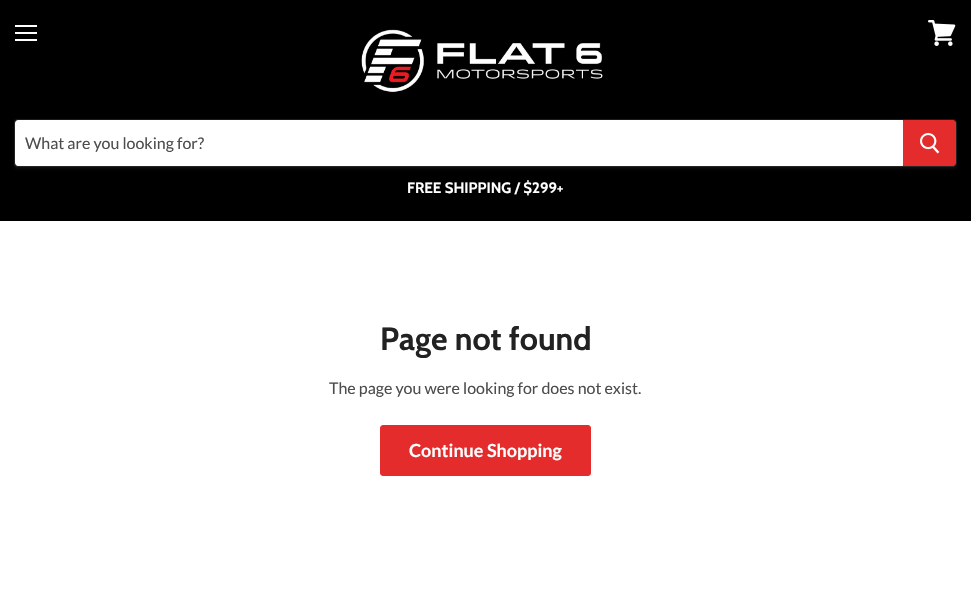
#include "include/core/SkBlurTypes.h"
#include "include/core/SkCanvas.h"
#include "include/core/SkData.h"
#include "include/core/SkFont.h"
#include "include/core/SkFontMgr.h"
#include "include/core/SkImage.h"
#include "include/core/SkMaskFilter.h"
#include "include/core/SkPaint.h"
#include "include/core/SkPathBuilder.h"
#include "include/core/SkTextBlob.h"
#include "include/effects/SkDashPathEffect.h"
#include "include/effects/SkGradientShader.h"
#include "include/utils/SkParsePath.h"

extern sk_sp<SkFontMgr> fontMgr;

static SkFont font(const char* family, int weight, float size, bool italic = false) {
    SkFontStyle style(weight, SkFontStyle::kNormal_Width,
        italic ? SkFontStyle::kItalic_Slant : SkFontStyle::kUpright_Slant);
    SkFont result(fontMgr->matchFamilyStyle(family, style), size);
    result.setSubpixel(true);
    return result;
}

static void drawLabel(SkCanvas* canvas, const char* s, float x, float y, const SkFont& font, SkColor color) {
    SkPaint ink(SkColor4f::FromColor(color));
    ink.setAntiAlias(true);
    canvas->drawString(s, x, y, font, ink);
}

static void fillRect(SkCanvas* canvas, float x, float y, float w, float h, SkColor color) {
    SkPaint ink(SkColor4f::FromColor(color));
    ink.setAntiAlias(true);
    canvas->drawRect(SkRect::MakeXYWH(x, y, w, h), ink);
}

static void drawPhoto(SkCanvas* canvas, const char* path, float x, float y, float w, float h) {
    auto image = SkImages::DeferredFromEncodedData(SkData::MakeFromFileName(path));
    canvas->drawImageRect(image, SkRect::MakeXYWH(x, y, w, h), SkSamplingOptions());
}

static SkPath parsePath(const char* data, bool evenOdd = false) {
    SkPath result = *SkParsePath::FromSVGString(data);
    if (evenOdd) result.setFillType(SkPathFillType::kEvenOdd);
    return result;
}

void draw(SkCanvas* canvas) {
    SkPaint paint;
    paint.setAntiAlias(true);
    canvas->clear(0xFFFFFFFF);
    fillRect(canvas, 0, 0, 971, 221, 0xFF000000);
    fillRect(canvas, 15, 25, 22, 2, 0xFFFFFFFF);
    fillRect(canvas, 15, 32, 22, 2, 0xFFFFFFFF);
    fillRect(canvas, 15, 39, 22, 2, 0xFFFFFFFF);
    drawPhoto(canvas, "assets/img1.png", 928, 20, 28, 26);
    drawPhoto(canvas, "assets/img2.png", 361, 29, 242, 63);
    paint.setColor(0x1C7F7F7F);
    paint.setMaskFilter(SkMaskFilter::MakeBlur(kNormal_SkBlurStyle, 1.5f));
    canvas->drawRoundRect(SkRect::MakeXYWH(14, 121, 943, 48), 4, 4, paint);
    paint.setMaskFilter(nullptr);
    paint.setStroke(true);
    paint.setStrokeWidth(1);
    paint.setColor(0x337F7F7F);
    canvas->drawPath(parsePath("M17 119.5H953C955 119.5 956.5 121 956.5 123V163C956.5 165 955 166.5 953 166.5H17C15.5 166.5 14.5 165.5 14.5 164V122C14.5 120.5 15.5 119.5 17 119.5Z"), paint);
    paint.setStroke(false);
    paint.setColor(0xFFFFFFFF);
    canvas->drawPath(parsePath("M18 120H903V166H18C16.5 166 15 164.5 15 163V123C15 121.5 16.5 120 18 120Z"), paint);
    SkFont font1 = font("Lato", 400, 16);
    drawLabel(canvas, "What are you looking for?", 25, 149, font1, 0xFF4D4D4D);
    paint.setColor(0xFFE32C2B);
    canvas->drawPath(parsePath("M903.5 120.5H953C954.5 120.5 955.5 121.5 955.5 123V163C955.5 164.5 954.5 165.5 953 165.5H903.5Z"), paint);
    paint.setStroke(true);
    canvas->drawPath(parsePath("M903.5 120.5H953C954.5 120.5 955.5 121.5 955.5 123V163C955.5 164.5 954.5 165.5 953 165.5H903.5Z"), paint);
    drawPhoto(canvas, "assets/img3.png", 920, 133, 20, 21);
    SkFont font2 = font("Cabin", 700, 15);
    drawLabel(canvas, "FREE SHIPPING / $299+", 407, 193, font2, 0xFFFFFFFF);
    SkFont font3 = font("Cabin", 700, 32);
    drawLabel(canvas, "Page not found", 380, 350, font3, 0xFF222222);
    drawLabel(canvas, "The page you were looking for does not exist.", 329, 394, font1, 0xFF4D4D4D);
    paint.setStroke(false);
    canvas->drawRoundRect(SkRect::MakeXYWH(380.5f, 425.5f, 210, 50), 2.5f, 2.5f, paint);
    paint.setStroke(true);
    canvas->drawRoundRect(SkRect::MakeXYWH(380.5f, 425.5f, 210, 50), 2.5f, 2.5f, paint);
    SkFont font4 = font("Lato", 700, 18);
    drawLabel(canvas, "Continue Shopping", 409, 457, font4, 0xFFFFFFFF);
}
